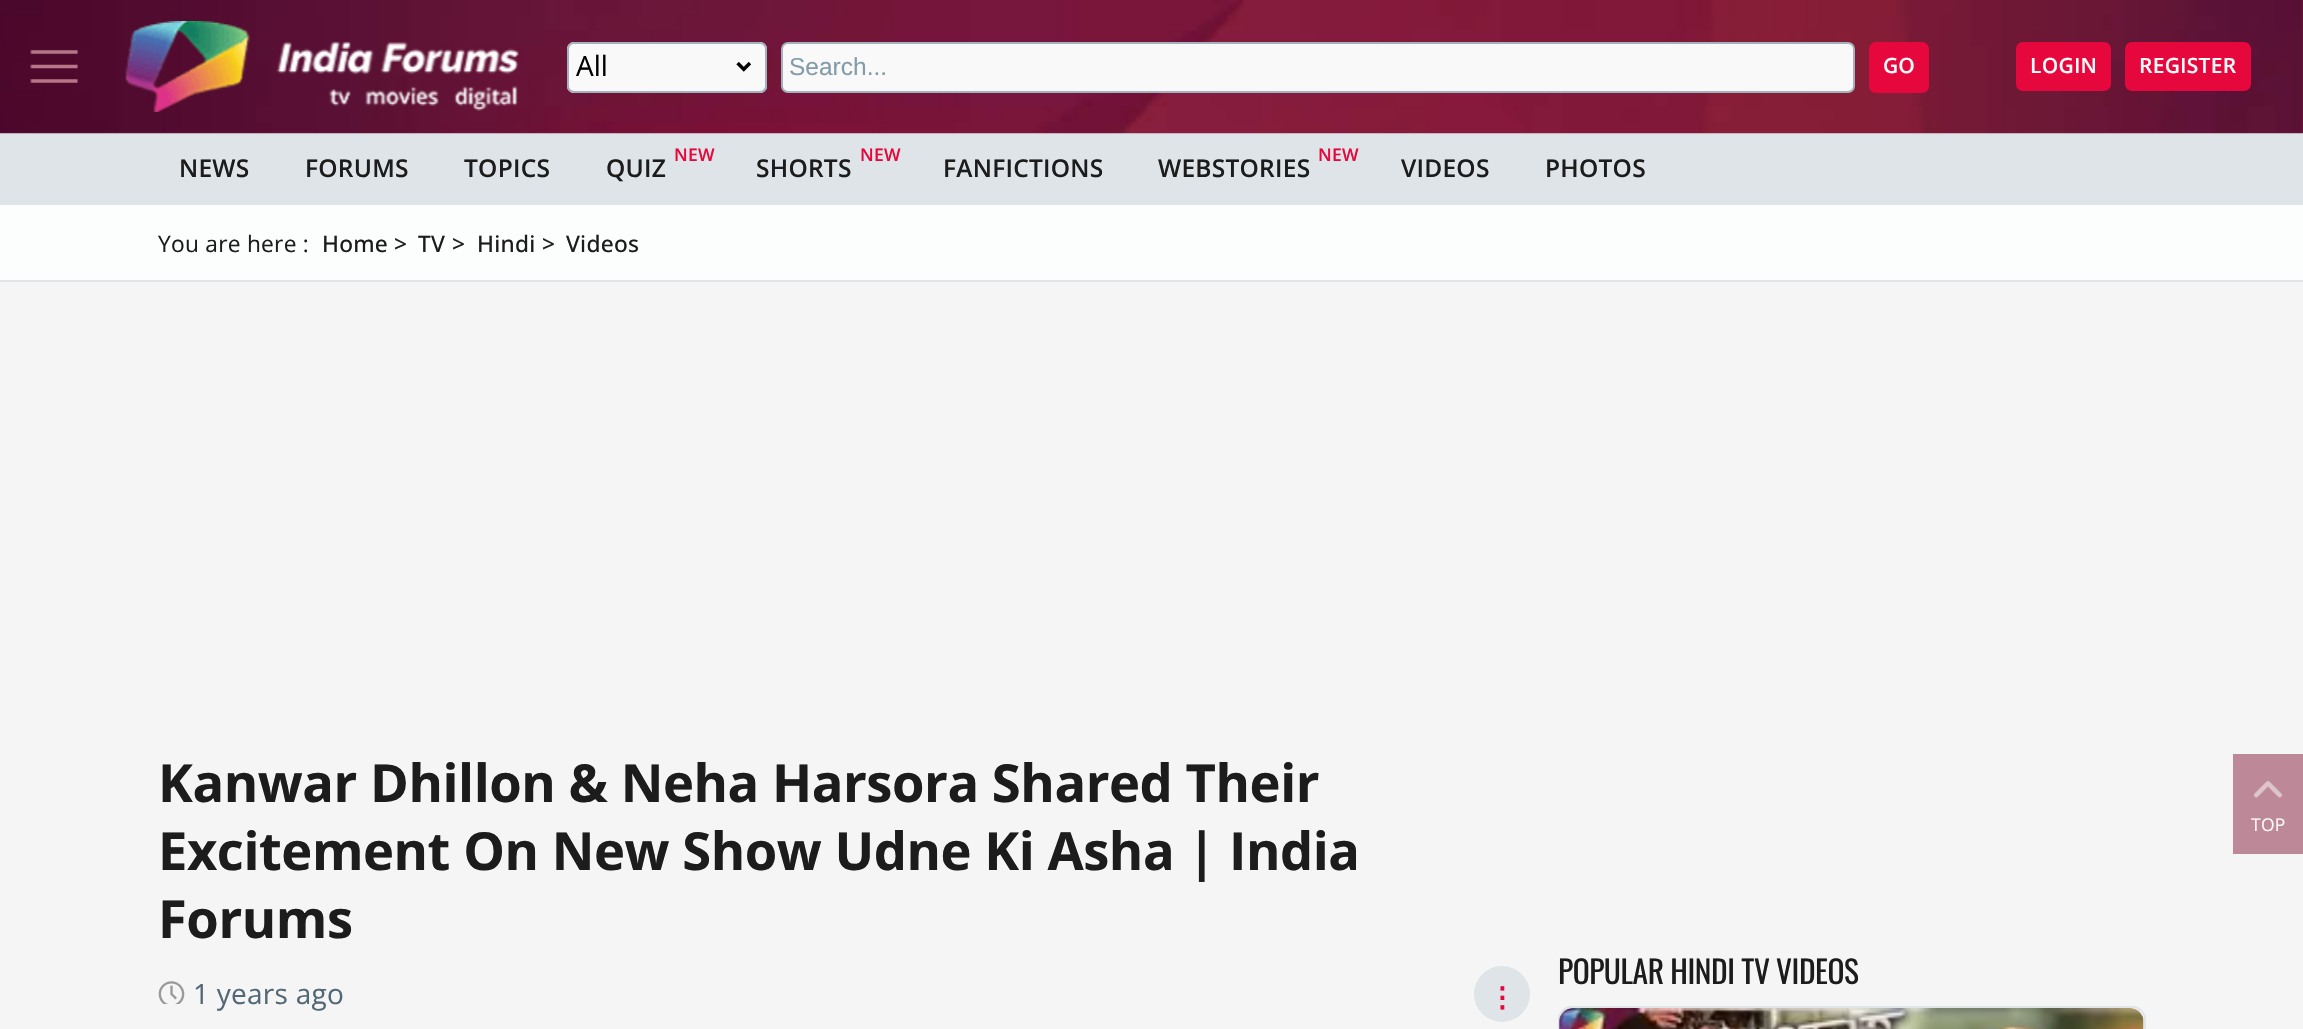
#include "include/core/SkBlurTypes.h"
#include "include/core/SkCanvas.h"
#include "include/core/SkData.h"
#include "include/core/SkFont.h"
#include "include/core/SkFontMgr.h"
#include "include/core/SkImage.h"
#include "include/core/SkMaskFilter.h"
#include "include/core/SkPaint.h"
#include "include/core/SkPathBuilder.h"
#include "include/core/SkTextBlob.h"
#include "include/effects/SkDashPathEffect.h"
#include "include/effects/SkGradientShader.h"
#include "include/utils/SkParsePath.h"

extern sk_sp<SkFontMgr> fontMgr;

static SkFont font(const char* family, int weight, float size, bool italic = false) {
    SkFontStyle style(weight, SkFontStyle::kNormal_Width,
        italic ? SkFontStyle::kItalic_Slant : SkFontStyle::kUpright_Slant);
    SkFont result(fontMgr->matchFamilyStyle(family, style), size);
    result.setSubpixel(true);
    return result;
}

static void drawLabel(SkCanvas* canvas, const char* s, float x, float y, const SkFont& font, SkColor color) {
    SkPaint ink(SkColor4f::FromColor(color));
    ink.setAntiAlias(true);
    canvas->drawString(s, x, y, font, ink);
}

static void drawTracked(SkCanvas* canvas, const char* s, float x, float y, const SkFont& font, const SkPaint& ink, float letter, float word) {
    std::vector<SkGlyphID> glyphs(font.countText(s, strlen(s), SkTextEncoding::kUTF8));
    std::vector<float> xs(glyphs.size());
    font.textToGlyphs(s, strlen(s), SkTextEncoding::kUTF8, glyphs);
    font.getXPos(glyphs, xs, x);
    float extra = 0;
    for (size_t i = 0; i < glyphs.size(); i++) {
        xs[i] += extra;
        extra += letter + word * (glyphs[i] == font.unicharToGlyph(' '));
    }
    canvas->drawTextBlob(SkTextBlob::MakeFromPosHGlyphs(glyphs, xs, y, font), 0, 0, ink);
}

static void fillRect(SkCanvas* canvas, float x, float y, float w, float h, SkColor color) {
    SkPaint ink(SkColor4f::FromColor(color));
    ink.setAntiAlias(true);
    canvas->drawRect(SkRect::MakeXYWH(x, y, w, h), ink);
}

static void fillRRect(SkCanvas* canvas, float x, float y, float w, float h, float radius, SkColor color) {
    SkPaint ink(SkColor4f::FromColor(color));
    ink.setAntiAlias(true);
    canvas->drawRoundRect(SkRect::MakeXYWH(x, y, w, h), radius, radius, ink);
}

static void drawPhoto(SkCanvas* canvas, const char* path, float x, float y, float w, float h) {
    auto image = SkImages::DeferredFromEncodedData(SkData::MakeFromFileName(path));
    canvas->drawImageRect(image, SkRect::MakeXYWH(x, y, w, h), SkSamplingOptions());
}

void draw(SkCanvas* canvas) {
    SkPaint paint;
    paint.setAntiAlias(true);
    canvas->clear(0xFFF5F5F5);
    fillRect(canvas, 0, 0, 2303, 133, 0xFF851C3B);
    fillRect(canvas, 0, 133, 2303, 72, 0xFFDEE4E8);
    drawPhoto(canvas, "assets/img1.png", 0, 0, 2303, 134);
    drawPhoto(canvas, "assets/img2.png", 30, 50, 48, 33);
    drawPhoto(canvas, "assets/img3.png", 125, 21, 394, 91);
    fillRRect(canvas, 567, 42, 200, 51, 7, 0xFFF9F9F9);
    drawPhoto(canvas, "assets/img4.png", 736, 61, 16, 11);
    paint.setStroke(true);
    paint.setStrokeWidth(2);
    paint.setColor(0xFFA2B3BE);
    canvas->drawRoundRect(SkRect::MakeXYWH(568, 43, 198, 49), 6, 6, paint);
    SkFont font1 = font("Open Sans", 400, 28);
    drawLabel(canvas, "All", 576, 76, font1, 0xFF000000);
    paint.setStroke(false);
    paint.setColor(0xFFF9F9F9);
    canvas->drawRoundRect(SkRect::MakeXYWH(782, 43, 1072, 49), 6, 6, paint);
    paint.setStroke(true);
    paint.setColor(0xFFA2B3BE);
    canvas->drawRoundRect(SkRect::MakeXYWH(782, 43, 1072, 49), 6, 6, paint);
    SkFont font2 = font("Liberation Sans", 400, 24.5f);
    drawLabel(canvas, "Search...", 789, 75, font2, 0xFF849BA9);
    fillRRect(canvas, 1869, 42, 60, 51, 7, 0xFFE6073D);
    SkFont font3 = font("Open Sans", 600, 21);
    drawLabel(canvas, "GO", 1883, 73, font3, 0xFFFAFAFA);
    fillRRect(canvas, 2016, 42, 95, 49, 7, 0xFFE6073D);
    paint.setStroke(false);
    paint.setColor(0xFFFAFAFA);
    drawTracked(canvas, "LOGIN", 2030, 73, font3, paint, 0.25f, 0);
    fillRRect(canvas, 2125, 42, 126, 49, 7, 0xFFE6073D);
    drawTracked(canvas, "REGISTER", 2139, 73, font3, paint, 0.25f, 0);
    SkFont font4 = font("Open Sans", 600, 24.5f);
    paint.setColor(0xFF1C1C1C);
    drawTracked(canvas, "NEWS", 179, 177, font4, paint, 0.25f, 0);
    drawTracked(canvas, "FORUMS", 305, 177, font4, paint, 0.25f, 0);
    drawTracked(canvas, "TOPICS", 464, 177, font4, paint, 0.25f, 0);
    SkFont font5 = font("Open Sans", 600, 17.5f);
    paint.setColor(0xFFE6073D);
    drawTracked(canvas, "NEW", 674, 161, font5, paint, 0.25f, 0);
    paint.setColor(0xFF1C1C1C);
    drawTracked(canvas, "QUIZ", 606, 177, font4, paint, 0.25f, 0);
    paint.setColor(0xFFE6073D);
    drawTracked(canvas, "NEW", 860, 161, font5, paint, 0.25f, 0);
    paint.setColor(0xFF1C1C1C);
    drawTracked(canvas, "SHORTS", 756, 177, font4, paint, 0.25f, 0);
    drawTracked(canvas, "FANFICTIONS", 943, 177, font4, paint, 0.25f, 0);
    paint.setColor(0xFFE6073D);
    drawTracked(canvas, "NEW", 1318, 161, font5, paint, 0.25f, 0);
    paint.setColor(0xFF1C1C1C);
    drawTracked(canvas, "WEBSTORIES", 1158, 177, font4, paint, 0.25f, 0);
    drawTracked(canvas, "VIDEOS", 1401, 177, font4, paint, 0.25f, 0);
    drawTracked(canvas, "PHOTOS", 1545, 177, font4, paint, 0.25f, 0);
    fillRect(canvas, 0, 205, 2303, 75, 0xFFFCFDFD);
    fillRect(canvas, 0, 280, 2303, 2, 0xFFDEE4E8);
    SkFont font6 = font("Open Sans", 400, 22.75f);
    drawTracked(canvas, "You are here :", 158, 252, font6, paint, 0.25f, 0);
    SkFont font7 = font("Open Sans", 500, 22.75f);
    drawTracked(canvas, "Home", 322, 252, font7, paint, 0.25f, 0);
    paint.setColor(0xFF222222);
    drawTracked(canvas, ">", 394, 252, font7, paint, 0.25f, 0);
    paint.setColor(0xFF1C1C1C);
    drawTracked(canvas, "TV", 418, 252, font7, paint, 0.25f, 0);
    paint.setColor(0xFF222222);
    drawTracked(canvas, ">", 452, 252, font7, paint, 0.25f, 0);
    paint.setColor(0xFF1C1C1C);
    drawTracked(canvas, "Hindi", 477, 252, font7, paint, 0.25f, 0);
    paint.setColor(0xFF222222);
    drawTracked(canvas, ">", 542, 252, font7, paint, 0.25f, 0);
    paint.setColor(0xFF1C1C1C);
    drawTracked(canvas, "Videos", 566, 252, font7, paint, 0.25f, 0);
    SkFont font8 = font("Open Sans", 700, 52.5f);
    drawTracked(canvas, "Kanwar Dhillon & Neha Harsora Shared Their", 158, 802, font8, paint, -0.45f, 0);
    drawTracked(canvas, "Excitement On New Show Udne Ki Asha | India", 158, 870, font8, paint, -0.45f, 0);
    drawTracked(canvas, "Forums", 158, 938, font8, paint, -0.45f, 0);
    drawPhoto(canvas, "assets/img5.png", 158, 981, 27, 23);
    paint.setColor(0xFF526875);
    drawTracked(canvas, "1 years ago", 193, 1004, font1, paint, 0.25f, 0);
    paint.setColor(0xFFDEE4E8);
    canvas->drawCircle(1502, 994, 28, paint);
    SkFont font9 = font("DejaVu Sans", 700, 28);
    paint.setColor(0xFFE6073D);
    drawTracked(canvas, "⋮", 1488, 1007, font9, paint, 0.25f, 0);
    SkFont font10 = font("Oswald", 400, 31.5f);
    paint.setColor(0xFF1C1C1C);
    drawTracked(canvas, "POPULAR HINDI TV VIDEOS", 1558, 984, font10, paint, -0.45f, 0);
    paint.setColor(0xFFFFFFFF);
    canvas->drawRoundRect(SkRect::MakeXYWH(1559, 1007, 586, 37), 13, 13, paint);
    paint.setStroke(true);
    paint.setColor(0xFFDEE4E8);
    canvas->drawRoundRect(SkRect::MakeXYWH(1559, 1007, 586, 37), 13, 13, paint);
    drawPhoto(canvas, "assets/img6.png", 1559, 1008, 585, 21);
    fillRect(canvas, 2233, 754, 70, 100, 0xFFBD8998);
    drawPhoto(canvas, "assets/img7.png", 2254, 780, 28, 18);
    SkFont font11 = font("Open Sans", 400, 17.5f);
    paint.setStroke(false);
    paint.setColor(0xFFFAFAFA);
    drawTracked(canvas, "TOP", 2251, 831, font11, paint, 0.25f, 0);
}
